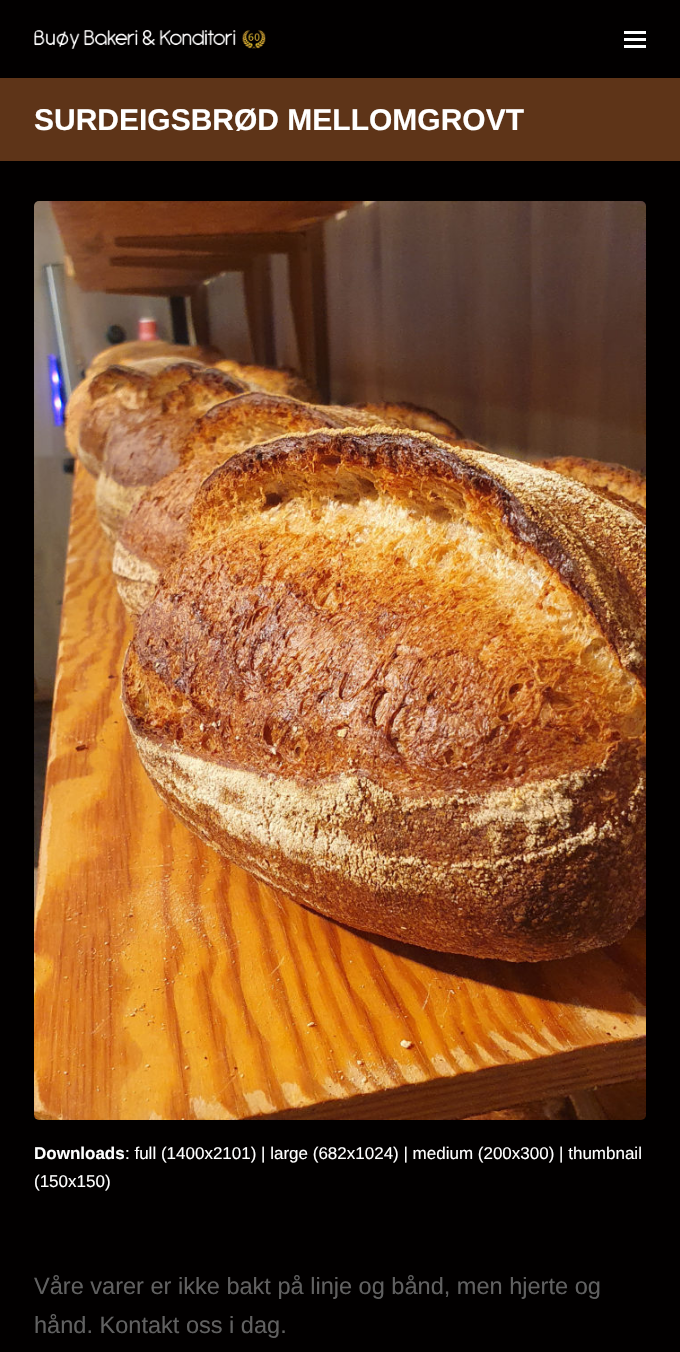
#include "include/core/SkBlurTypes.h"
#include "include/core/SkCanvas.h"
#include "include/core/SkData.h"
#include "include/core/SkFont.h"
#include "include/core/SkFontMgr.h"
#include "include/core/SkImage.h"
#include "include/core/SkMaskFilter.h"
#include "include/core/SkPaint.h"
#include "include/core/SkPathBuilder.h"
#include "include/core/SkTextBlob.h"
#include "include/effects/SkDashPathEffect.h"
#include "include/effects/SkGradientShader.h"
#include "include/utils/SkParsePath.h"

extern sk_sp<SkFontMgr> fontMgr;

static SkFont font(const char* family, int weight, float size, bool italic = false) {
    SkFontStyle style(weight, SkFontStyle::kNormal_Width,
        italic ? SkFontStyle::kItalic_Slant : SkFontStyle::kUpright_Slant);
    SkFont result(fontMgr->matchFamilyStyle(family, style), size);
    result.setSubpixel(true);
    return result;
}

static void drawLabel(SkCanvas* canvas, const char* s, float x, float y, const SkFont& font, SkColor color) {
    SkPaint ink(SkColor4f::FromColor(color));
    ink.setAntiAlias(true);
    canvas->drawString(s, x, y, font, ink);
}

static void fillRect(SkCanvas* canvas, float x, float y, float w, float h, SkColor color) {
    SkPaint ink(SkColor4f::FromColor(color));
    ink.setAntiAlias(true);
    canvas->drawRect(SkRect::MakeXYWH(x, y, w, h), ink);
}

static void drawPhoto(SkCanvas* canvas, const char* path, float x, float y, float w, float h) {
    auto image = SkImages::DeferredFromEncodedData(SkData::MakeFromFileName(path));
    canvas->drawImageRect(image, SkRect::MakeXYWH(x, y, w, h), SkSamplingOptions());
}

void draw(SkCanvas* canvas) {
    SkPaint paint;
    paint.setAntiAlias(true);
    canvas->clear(0xFF020000);
    drawPhoto(canvas, "assets/img1.png", 34, 30, 232, 19);
    fillRect(canvas, 624, 38, 22, 3, 0xFFFFFFFF);
    fillRect(canvas, 624, 31, 22, 3, 0xFFFFFFFF);
    fillRect(canvas, 624, 45, 22, 3, 0xFFFFFFFF);
    fillRect(canvas, 0, 78, 680, 83, 0xFF5E3418);
    SkFont font1 = font("Liberation Sans", 700, 30);
    drawLabel(canvas, "SURDEIGSBRØD MELLOMGROVT", 34, 130, font1, 0xFFFFFFFF);
    drawPhoto(canvas, "assets/img2.png", 34, 201, 612, 919);
    SkFont font2 = font("Liberation Sans", 700, 17);
    drawLabel(canvas, "Downloads", 34, 1159, font2, 0xFFFFFFFF);
    SkFont font3 = font("Liberation Sans", 400, 17);
    drawLabel(canvas, ": full (1400x2101) | large (682x1024) | medium (200x300) | thumbnail", 125, 1159, font3, 0xFFFFFFFF);
    drawLabel(canvas, "(150x150)", 34, 1187, font3, 0xFFFFFFFF);
    SkFont font4 = font("Liberation Sans", 400, 23.55f);
    drawLabel(canvas, "Våre varer er ikke bakt på linje og bånd, men hjerte og", 34, 1294, font4, 0xFF616161);
    drawLabel(canvas, "hånd. Kontakt oss i dag.", 34, 1333, font4, 0xFF616161);
}
